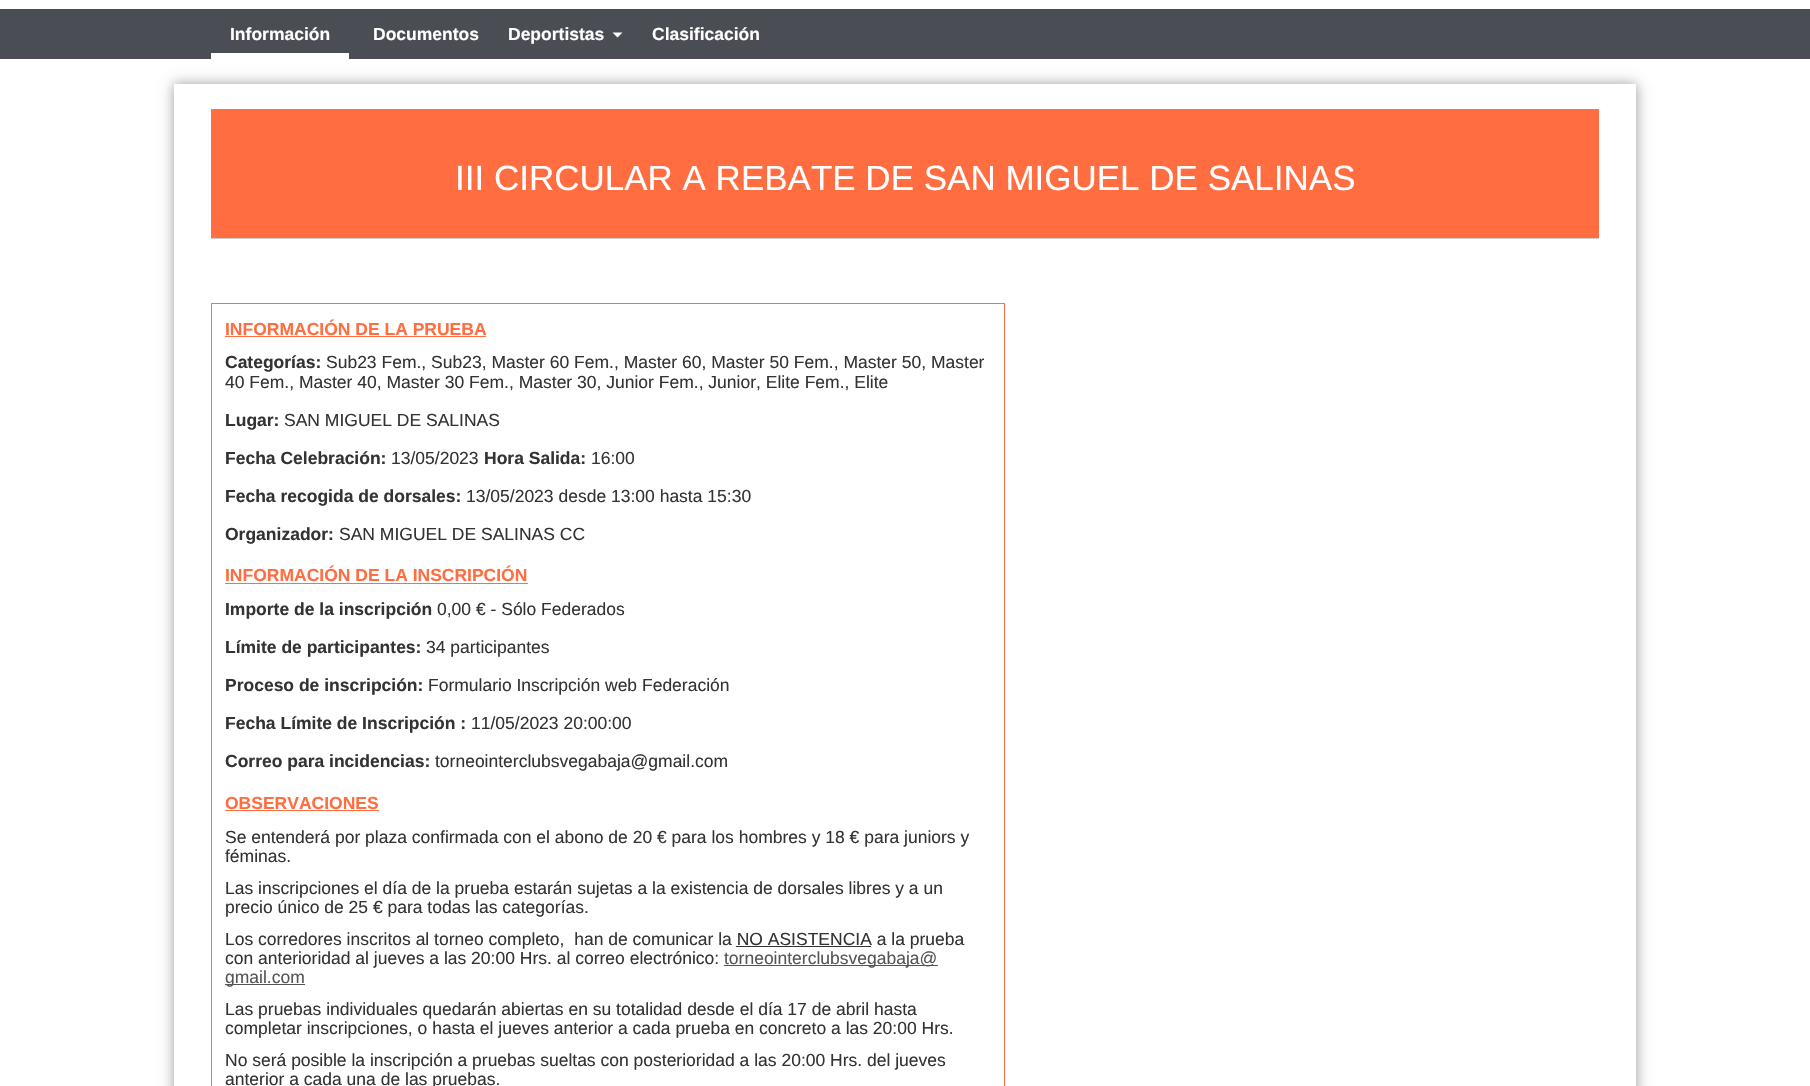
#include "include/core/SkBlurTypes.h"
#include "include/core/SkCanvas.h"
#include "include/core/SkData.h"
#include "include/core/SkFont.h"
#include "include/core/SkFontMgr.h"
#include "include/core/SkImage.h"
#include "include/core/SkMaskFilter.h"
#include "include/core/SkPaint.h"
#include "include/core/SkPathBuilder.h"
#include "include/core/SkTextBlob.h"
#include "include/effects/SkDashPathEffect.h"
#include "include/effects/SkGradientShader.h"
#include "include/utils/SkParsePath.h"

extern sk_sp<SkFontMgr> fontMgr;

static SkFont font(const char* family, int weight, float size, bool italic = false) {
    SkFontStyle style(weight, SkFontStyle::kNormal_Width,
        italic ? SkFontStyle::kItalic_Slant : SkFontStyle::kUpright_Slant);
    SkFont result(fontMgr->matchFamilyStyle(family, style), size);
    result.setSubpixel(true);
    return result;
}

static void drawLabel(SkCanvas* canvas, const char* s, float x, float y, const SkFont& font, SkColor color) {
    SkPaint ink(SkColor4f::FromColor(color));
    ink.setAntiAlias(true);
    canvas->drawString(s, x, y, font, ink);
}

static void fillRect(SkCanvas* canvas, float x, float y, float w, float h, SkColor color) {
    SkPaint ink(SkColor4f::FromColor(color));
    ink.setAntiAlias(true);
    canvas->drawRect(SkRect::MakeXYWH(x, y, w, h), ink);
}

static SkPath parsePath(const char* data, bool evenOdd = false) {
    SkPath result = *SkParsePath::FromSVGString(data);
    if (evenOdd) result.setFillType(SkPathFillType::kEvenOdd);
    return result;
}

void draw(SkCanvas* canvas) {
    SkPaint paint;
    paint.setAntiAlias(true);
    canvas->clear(0xFFFFFFFF);
    fillRect(canvas, 0, 9, 1810, 50, 0xFF4A4D53);
    fillRect(canvas, 211, 53, 138, 6, 0xFFFFFFFF);
    SkFont font1 = font("Liberation Sans", 700, 17.5f);
    drawLabel(canvas, "Información", 230, 40, font1, 0xFFFFFFFF);
    drawLabel(canvas, "Documentos", 373, 40, font1, 0xFFFFFFFF);
    drawLabel(canvas, "Deportistas", 508, 40, font1, 0xFFFFFFFF);
    paint.setColor(0xFFFFFFFF);
    canvas->drawPath(parsePath("M612.5 32.5H622.5L617.5 37.5Z"), paint);
    drawLabel(canvas, "Clasificación", 652, 40, font1, 0xFFFFFFFF);
    canvas->save();
    canvas->clipPath(parsePath("M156 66H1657V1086H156ZM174 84H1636V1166H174Z", true), true);
    paint.setColor(0x33000000);
    paint.setMaskFilter(SkMaskFilter::MakeBlur(kNormal_SkBlurStyle, 6));
    canvas->drawRect(SkRect::MakeXYWH(175, 85, 1463, 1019), paint);
    paint.setMaskFilter(nullptr);
    canvas->restore();
    canvas->save();
    canvas->clipPath(parsePath("M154 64H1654V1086H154ZM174 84H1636V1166H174Z", true), true);
    paint.setMaskFilter(SkMaskFilter::MakeBlur(kNormal_SkBlurStyle, 6));
    canvas->drawRect(SkRect::MakeXYWH(173, 83, 1462, 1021), paint);
    paint.setMaskFilter(nullptr);
    canvas->restore();
    fillRect(canvas, 211, 109, 1388, 129, 0xFFFF6D40);
    fillRect(canvas, 211, 238, 1388, 1, 0xFFCCCCCC);
    SkFont font2 = font("Liberation Sans", 400, 35);
    drawLabel(canvas, "III CIRCULAR A REBATE DE SAN MIGUEL DE SALINAS", 455, 190, font2, 0xFFFFFFFF);
    paint.setStroke(true);
    paint.setStrokeWidth(1);
    paint.setColor(0xFFFF6D40);
    canvas->drawRect(SkRect::MakeXYWH(211.5f, 303.5f, 793, 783), paint);
    drawLabel(canvas, "INFORMACIÓN DE LA PRUEBA", 225, 335, font1, 0xFFFF6D40);
    fillRect(canvas, 225, 336, 261, 1, 0xFFFF6D40);
    drawLabel(canvas, "Categorías:", 225, 368, font1, 0xFF333333);
    SkFont font3 = font("Liberation Sans", 400, 17.5f);
    drawLabel(canvas, "Sub23 Fem., Sub23, Master 60 Fem., Master 60, Master 50 Fem., Master 50, Master", 326, 368, font3, 0xFF333333);
    drawLabel(canvas, "40 Fem., Master 40, Master 30 Fem., Master 30, Junior Fem., Junior, Elite Fem., Elite", 225, 388, font3, 0xFF333333);
    drawLabel(canvas, "Lugar:", 225, 426, font1, 0xFF333333);
    drawLabel(canvas, "SAN MIGUEL DE SALINAS", 284, 426, font3, 0xFF333333);
    drawLabel(canvas, "Fecha Celebración:", 225, 464, font1, 0xFF333333);
    drawLabel(canvas, "13/05/2023", 391, 464, font3, 0xFF333333);
    drawLabel(canvas, "Hora Salida:", 484, 464, font1, 0xFF333333);
    drawLabel(canvas, "16:00", 591, 464, font3, 0xFF333333);
    drawLabel(canvas, "Fecha recogida de dorsales:", 225, 502, font1, 0xFF333333);
    drawLabel(canvas, "13/05/2023 desde 13:00 hasta 15:30", 466, 502, font3, 0xFF333333);
    drawLabel(canvas, "Organizador:", 225, 540, font1, 0xFF333333);
    drawLabel(canvas, "SAN MIGUEL DE SALINAS CC", 339, 540, font3, 0xFF333333);
    drawLabel(canvas, "INFORMACIÓN DE LA INSCRIPCIÓN", 225, 581, font1, 0xFFFF6D40);
    fillRect(canvas, 225, 583, 303, 1, 0xFFFF6D40);
    drawLabel(canvas, "Importe de la inscripción", 225, 615, font1, 0xFF333333);
    drawLabel(canvas, "0,00 € - Sólo Federados", 437, 615, font3, 0xFF333333);
    drawLabel(canvas, "Límite de participantes:", 225, 653, font1, 0xFF333333);
    drawLabel(canvas, "34 participantes", 426, 653, font3, 0xFF333333);
    drawLabel(canvas, "Proceso de inscripción:", 225, 691, font1, 0xFF333333);
    drawLabel(canvas, "Formulario Inscripción web Federación", 428, 691, font3, 0xFF333333);
    drawLabel(canvas, "Fecha Límite de Inscripción :", 225, 729, font1, 0xFF333333);
    drawLabel(canvas, "11/05/2023 20:00:00", 471, 729, font3, 0xFF333333);
    drawLabel(canvas, "Correo para incidencias:", 225, 767, font1, 0xFF333333);
    drawLabel(canvas, "torneointerclubsvegabaja@gmail.com", 435, 767, font3, 0xFF333333);
    drawLabel(canvas, "OBSERVACIONES", 225, 809, font1, 0xFFFF6D40);
    fillRect(canvas, 225, 810, 154, 1, 0xFFFF6D40);
    drawLabel(canvas, "Se entenderá por plaza confirmada con el abono de 20 € para los hombres y 18 € para juniors y", 225, 843, font3, 0xFF333333);
    drawLabel(canvas, "féminas.", 225, 862, font3, 0xFF333333);
    drawLabel(canvas, "Las inscripciones el día de la prueba estarán sujetas a la existencia de dorsales libres y a un", 225, 894, font3, 0xFF333333);
    drawLabel(canvas, "precio único de 25 € para todas las categorías.", 225, 913, font3, 0xFF333333);
    drawLabel(canvas, "Los corredores inscritos al torneo completo,  han de comunicar la NO ASISTENCIA a la prueba", 225, 945, font3, 0xFF333333);
    fillRect(canvas, 736, 946, 135, 1, 0xFF333333);
    drawLabel(canvas, "con anterioridad al jueves a las 20:00 Hrs. al correo electrónico:", 225, 964, font3, 0xFF333333);
    fillRect(canvas, 724, 965, 214, 1, 0xFF555555);
    drawLabel(canvas, "torneointerclubsvegabaja@", 724, 964, font3, 0xFF555555);
    fillRect(canvas, 225, 984, 80, 1, 0xFF555555);
    drawLabel(canvas, "gmail.com", 225, 983, font3, 0xFF555555);
    drawLabel(canvas, "Las pruebas individuales quedarán abiertas en su totalidad desde el día 17 de abril hasta", 225, 1015, font3, 0xFF333333);
    drawLabel(canvas, "completar inscripciones, o hasta el jueves anterior a cada prueba en concreto a las 20:00 Hrs.", 225, 1034, font3, 0xFF333333);
    drawLabel(canvas, "No será posible la inscripción a pruebas sueltas con posterioridad a las 20:00 Hrs. del jueves", 225, 1066, font3, 0xFF333333);
    drawLabel(canvas, "anterior a cada una de las pruebas.", 225, 1085, font3, 0xFF333333);
}
